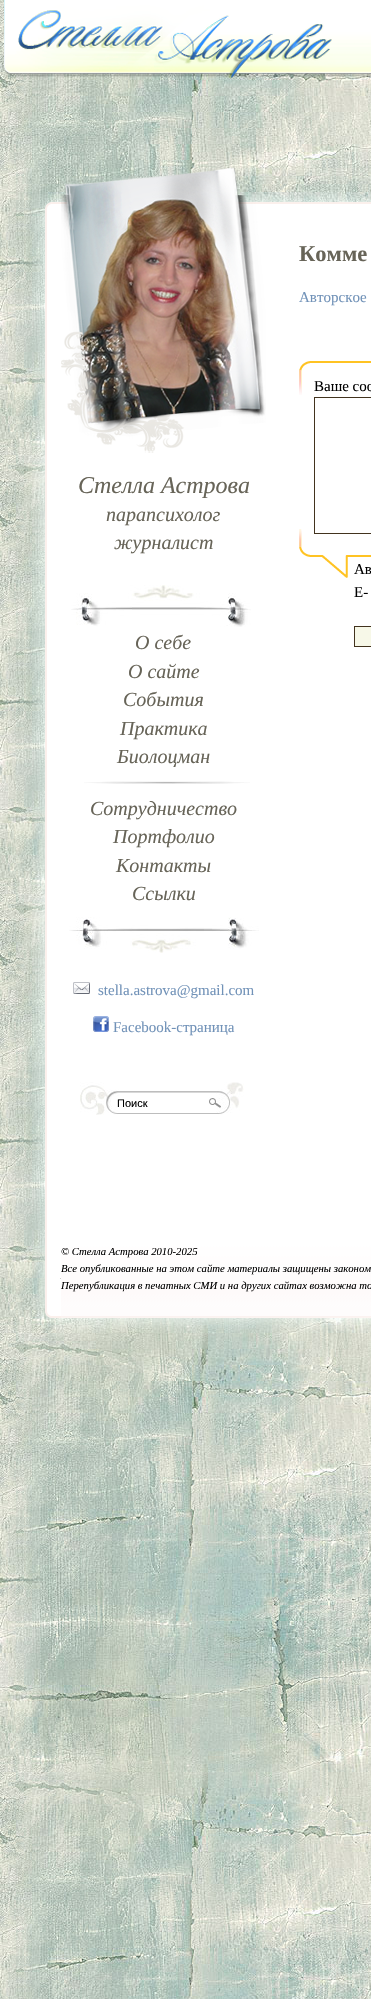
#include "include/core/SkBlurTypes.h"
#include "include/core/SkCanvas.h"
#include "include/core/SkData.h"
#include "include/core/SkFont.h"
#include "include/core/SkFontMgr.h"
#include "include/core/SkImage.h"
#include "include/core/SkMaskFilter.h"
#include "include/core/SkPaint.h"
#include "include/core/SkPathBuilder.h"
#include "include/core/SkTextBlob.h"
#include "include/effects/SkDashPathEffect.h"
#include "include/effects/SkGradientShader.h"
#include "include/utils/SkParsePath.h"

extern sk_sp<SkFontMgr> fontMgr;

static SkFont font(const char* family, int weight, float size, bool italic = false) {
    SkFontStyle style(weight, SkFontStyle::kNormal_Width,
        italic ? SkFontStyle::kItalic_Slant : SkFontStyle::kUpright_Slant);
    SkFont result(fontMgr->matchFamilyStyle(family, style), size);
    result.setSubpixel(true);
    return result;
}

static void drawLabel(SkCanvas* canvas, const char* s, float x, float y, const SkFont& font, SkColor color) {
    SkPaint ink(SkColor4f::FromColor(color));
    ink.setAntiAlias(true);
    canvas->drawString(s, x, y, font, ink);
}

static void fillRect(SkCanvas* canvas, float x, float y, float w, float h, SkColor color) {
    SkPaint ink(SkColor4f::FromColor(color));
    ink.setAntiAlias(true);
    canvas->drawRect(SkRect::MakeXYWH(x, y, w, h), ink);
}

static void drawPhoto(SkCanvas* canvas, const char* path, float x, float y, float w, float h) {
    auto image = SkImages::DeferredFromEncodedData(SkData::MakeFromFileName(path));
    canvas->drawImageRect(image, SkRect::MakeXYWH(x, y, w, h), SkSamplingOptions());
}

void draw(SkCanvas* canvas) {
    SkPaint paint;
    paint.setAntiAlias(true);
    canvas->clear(0xFFFFFFFF);
    drawPhoto(canvas, "assets/img1.png", 0, 0, 371, 1999);
    drawPhoto(canvas, "assets/img2.png", 4, 0, 330, 78);
    drawPhoto(canvas, "assets/img3.png", 334, 0, 30, 77);
    drawPhoto(canvas, "assets/img4.png", 364, 0, 7, 77);
    drawPhoto(canvas, "assets/img5.png", 31, 192, 27, 30);
    drawPhoto(canvas, "assets/img6.png", 58, 192, 313, 30);
    drawPhoto(canvas, "assets/img7.png", 30, 222, 28, 1021);
    fillRect(canvas, 58, 222, 313, 1021, 0xFFFFFFFF);
    SkFont font1 = font("Liberation Serif", 700, 22.5f);
    drawLabel(canvas, "Комме", 299, 261, font1, 0xFF676458);
    SkFont font2 = font("Liberation Serif", 400, 15);
    drawLabel(canvas, "Авторское", 299, 302, font2, 0xFF7192B8);
    drawPhoto(canvas, "assets/img8.png", 299, 361, 72, 34);
    drawPhoto(canvas, "assets/img9.png", 299, 529, 72, 49);
    drawLabel(canvas, "Ваше соо", 314, 391, font2, 0xFF000000);
    paint.setStroke(true);
    paint.setStrokeWidth(1);
    paint.setColor(0xFF42331E);
    canvas->drawRect(SkRect::MakeXYWH(314.5f, 397.5f, 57, 136), paint);
    drawLabel(canvas, "Ав", 354, 574, font2, 0xFF000000);
    drawLabel(canvas, "E-", 354, 597, font2, 0xFF000000);
    paint.setStroke(false);
    paint.setColor(0xFFF7F8E8);
    canvas->drawRect(SkRect::MakeXYWH(354.5f, 626.5f, 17, 20), paint);
    paint.setStroke(true);
    paint.setColor(0xFF42331E);
    canvas->drawRect(SkRect::MakeXYWH(354.5f, 626.5f, 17, 20), paint);
    drawPhoto(canvas, "assets/img10.png", 61, 166, 202, 287);
    drawPhoto(canvas, "assets/img11.png", 64, 167, 202, 286);
    SkFont font3 = font("Liberation Serif", 400, 24, true);
    drawLabel(canvas, "Стелла Астрова", 78, 493, font3, 0xFF676458);
    SkFont font4 = font("Liberation Serif", 400, 20, true);
    drawLabel(canvas, "парапсихолог", 106, 521, font4, 0xFF676458);
    drawLabel(canvas, "журналист", 114, 549, font4, 0xFF676458);
    drawPhoto(canvas, "assets/img12.png", 71, 585, 180, 42);
    drawLabel(canvas, "О себе", 135, 649, font4, 0xFF676458);
    drawLabel(canvas, "О сайте", 128, 678, font4, 0xFF676458);
    drawLabel(canvas, "События", 123, 706, font4, 0xFF676458);
    drawLabel(canvas, "Практика", 120, 735, font4, 0xFF676458);
    drawLabel(canvas, "Биолоцман", 117, 763, font4, 0xFF676458);
    drawPhoto(canvas, "assets/img13.png", 84, 781, 166, 3);
    drawLabel(canvas, "Сотрудничество", 90, 815, font4, 0xFF676458);
    drawLabel(canvas, "Портфолио", 113, 843, font4, 0xFF676458);
    drawLabel(canvas, "Контакты", 116, 872, font4, 0xFF676458);
    drawLabel(canvas, "Ссылки", 132, 900, font4, 0xFF676458);
    drawPhoto(canvas, "assets/img14.png", 69, 917, 190, 36);
    drawPhoto(canvas, "assets/img15.png", 73, 982, 17, 12);
    drawLabel(canvas, "stella.astrova@gmail.com", 98, 995, font2, 0xFF7192B8);
    drawPhoto(canvas, "assets/img16.png", 93, 1016, 16, 16);
    drawLabel(canvas, "Facebook-страница", 113, 1032, font2, 0xFF7192B8);
    drawPhoto(canvas, "assets/img17.png", 80, 1082, 164, 33);
    SkFont font5 = font("Liberation Sans", 400, 11);
    drawLabel(canvas, "Поиск", 117, 1107, font5, 0xFF000000);
    drawPhoto(canvas, "assets/img18.png", 30, 1243, 31, 87);
    drawPhoto(canvas, "assets/img19.png", 61, 1243, 310, 90);
    SkFont font6 = font("Liberation Serif", 400, 10.7f, true);
    drawLabel(canvas, "© Стелла Астрова 2010-2025", 61, 1255, font6, 0xFF000000);
    drawLabel(canvas, "Все опубликованные на этом сайте материалы защищены законом", 61, 1272, font6, 0xFF000000);
    drawLabel(canvas, "Перепубликация в печатных СМИ и на других сайтах возможна то", 61, 1289, font6, 0xFF000000);
}
